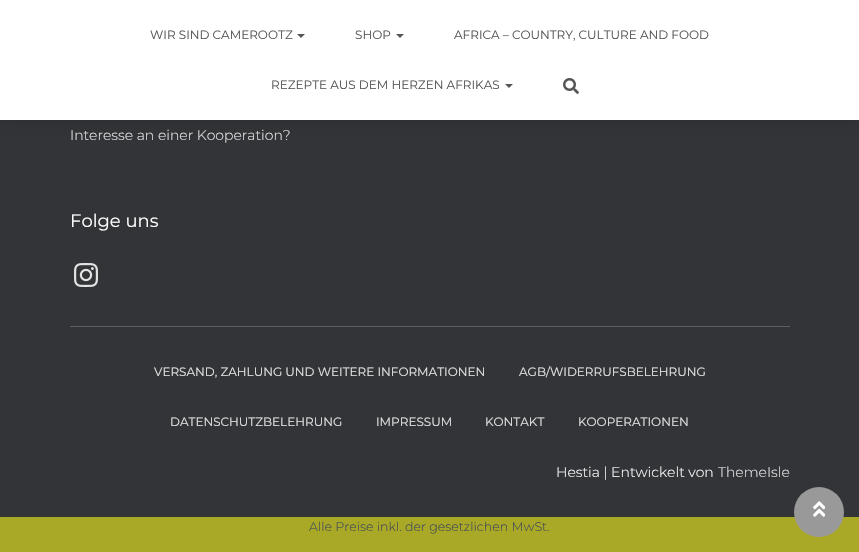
#include "include/core/SkBlurTypes.h"
#include "include/core/SkCanvas.h"
#include "include/core/SkData.h"
#include "include/core/SkFont.h"
#include "include/core/SkFontMgr.h"
#include "include/core/SkImage.h"
#include "include/core/SkMaskFilter.h"
#include "include/core/SkPaint.h"
#include "include/core/SkPathBuilder.h"
#include "include/core/SkTextBlob.h"
#include "include/effects/SkDashPathEffect.h"
#include "include/effects/SkGradientShader.h"
#include "include/utils/SkParsePath.h"

extern sk_sp<SkFontMgr> fontMgr;

static SkFont font(const char* family, int weight, float size, bool italic = false) {
    SkFontStyle style(weight, SkFontStyle::kNormal_Width,
        italic ? SkFontStyle::kItalic_Slant : SkFontStyle::kUpright_Slant);
    SkFont result(fontMgr->matchFamilyStyle(family, style), size);
    result.setSubpixel(true);
    return result;
}

static void drawLabel(SkCanvas* canvas, const char* s, float x, float y, const SkFont& font, SkColor color) {
    SkPaint ink(SkColor4f::FromColor(color));
    ink.setAntiAlias(true);
    canvas->drawString(s, x, y, font, ink);
}

static void fillRect(SkCanvas* canvas, float x, float y, float w, float h, SkColor color) {
    SkPaint ink(SkColor4f::FromColor(color));
    ink.setAntiAlias(true);
    canvas->drawRect(SkRect::MakeXYWH(x, y, w, h), ink);
}

static void drawPhoto(SkCanvas* canvas, const char* path, float x, float y, float w, float h) {
    auto image = SkImages::DeferredFromEncodedData(SkData::MakeFromFileName(path));
    canvas->drawImageRect(image, SkRect::MakeXYWH(x, y, w, h), SkSamplingOptions());
}

static SkPath parsePath(const char* data, bool evenOdd = false) {
    SkPath result = *SkParsePath::FromSVGString(data);
    if (evenOdd) result.setFillType(SkPathFillType::kEvenOdd);
    return result;
}

void draw(SkCanvas* canvas) {
    SkPaint paint;
    paint.setAntiAlias(true);
    canvas->clear(0xFFAAA827);
    fillRect(canvas, 0, 120, 859, 397, 0xFF323437);
    paint.setColor(0x26000000);
    paint.setMaskFilter(SkMaskFilter::MakeBlur(kNormal_SkBlurStyle, 10));
    canvas->drawRect(SkRect::MakeXYWH(0, 0, 859, 120), paint);
    paint.setMaskFilter(nullptr);
    fillRect(canvas, 0, 0, 859, 120, 0xFFFFFFFF);
    SkFont font1 = font("Montserrat", 400, 12);
    drawLabel(canvas, "WIR SIND CAMEROOTZ", 150, 39, font1, 0xFF555555);
    paint.setColor(0xFF555555);
    canvas->drawPath(parsePath("M297 34H305L301 38Z"), paint);
    drawLabel(canvas, "SHOP", 355, 39, font1, 0xFF555555);
    canvas->drawPath(parsePath("M396 34H404L400 38Z"), paint);
    drawLabel(canvas, "AFRICA – COUNTRY, CULTURE AND FOOD", 454, 39, font1, 0xFF555555);
    drawLabel(canvas, "REZEPTE AUS DEM HERZEN AFRIKAS", 271, 89, font1, 0xFF555555);
    canvas->drawPath(parsePath("M505 84H513L509 88Z"), paint);
    drawPhoto(canvas, "assets/img1.png", 563, 78, 16, 16);
    SkFont font2 = font("Montserrat", 300, 14);
    drawLabel(canvas, "Interesse an einer Kooperation?", 70, 140, font2, 0xFFE2E3E3);
    SkFont font3 = font("Montserrat", 400, 18);
    drawLabel(canvas, "Folge uns", 70, 227, font3, 0xFFFFFFFF);
    drawPhoto(canvas, "assets/img2.png", 74, 263, 24, 24);
    fillRect(canvas, 70, 326, 720, 1, 0xFF5B5D5F);
    drawLabel(canvas, "VERSAND, ZAHLUNG UND WEITERE INFORMATIONEN", 154, 376, font1, 0xFFE2E3E3);
    drawLabel(canvas, "AGB/WIDERRUFSBELEHRUNG", 519, 376, font1, 0xFFE2E3E3);
    drawLabel(canvas, "DATENSCHUTZBELEHRUNG", 170, 426, font1, 0xFFE2E3E3);
    drawLabel(canvas, "IMPRESSUM", 376, 426, font1, 0xFFE2E3E3);
    drawLabel(canvas, "KONTAKT", 485, 426, font1, 0xFFE2E3E3);
    drawLabel(canvas, "KOOPERATIONEN", 578, 426, font1, 0xFFE2E3E3);
    drawLabel(canvas, "Hestia | Entwickelt von", 556, 477, font2, 0xFFFFFFFF);
    drawLabel(canvas, "ThemeIsle", 718, 477, font2, 0xFFE2E3E3);
    SkFont font4 = font("Montserrat", 300, 12.6f);
    drawLabel(canvas, "Alle Preise inkl. der gesetzlichen MwSt.", 309, 531, font4, 0xFF3C4858);
    paint.setColor(0xFF999999);
    canvas->drawCircle(819, 512, 25, paint);
    drawPhoto(canvas, "assets/img3.png", 813, 501, 12, 16);
}
